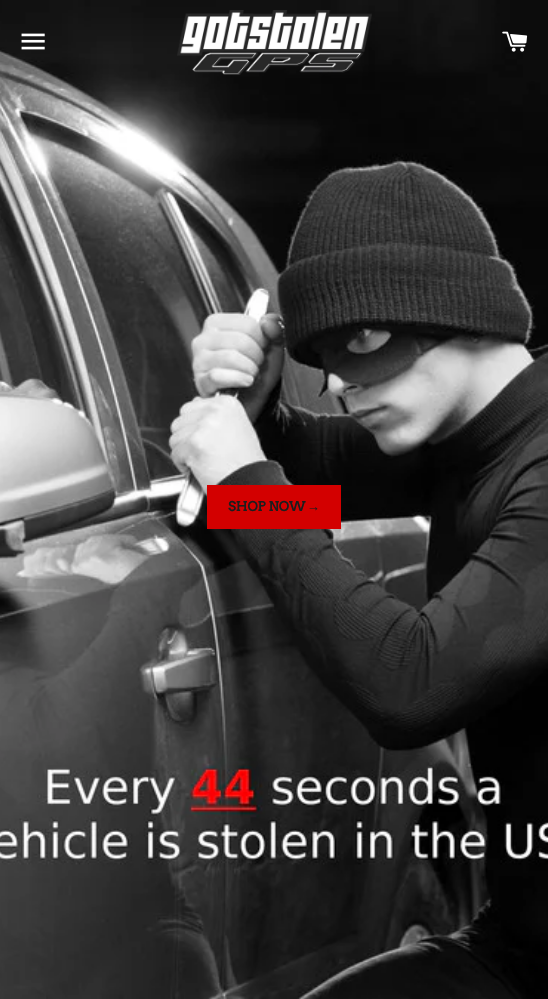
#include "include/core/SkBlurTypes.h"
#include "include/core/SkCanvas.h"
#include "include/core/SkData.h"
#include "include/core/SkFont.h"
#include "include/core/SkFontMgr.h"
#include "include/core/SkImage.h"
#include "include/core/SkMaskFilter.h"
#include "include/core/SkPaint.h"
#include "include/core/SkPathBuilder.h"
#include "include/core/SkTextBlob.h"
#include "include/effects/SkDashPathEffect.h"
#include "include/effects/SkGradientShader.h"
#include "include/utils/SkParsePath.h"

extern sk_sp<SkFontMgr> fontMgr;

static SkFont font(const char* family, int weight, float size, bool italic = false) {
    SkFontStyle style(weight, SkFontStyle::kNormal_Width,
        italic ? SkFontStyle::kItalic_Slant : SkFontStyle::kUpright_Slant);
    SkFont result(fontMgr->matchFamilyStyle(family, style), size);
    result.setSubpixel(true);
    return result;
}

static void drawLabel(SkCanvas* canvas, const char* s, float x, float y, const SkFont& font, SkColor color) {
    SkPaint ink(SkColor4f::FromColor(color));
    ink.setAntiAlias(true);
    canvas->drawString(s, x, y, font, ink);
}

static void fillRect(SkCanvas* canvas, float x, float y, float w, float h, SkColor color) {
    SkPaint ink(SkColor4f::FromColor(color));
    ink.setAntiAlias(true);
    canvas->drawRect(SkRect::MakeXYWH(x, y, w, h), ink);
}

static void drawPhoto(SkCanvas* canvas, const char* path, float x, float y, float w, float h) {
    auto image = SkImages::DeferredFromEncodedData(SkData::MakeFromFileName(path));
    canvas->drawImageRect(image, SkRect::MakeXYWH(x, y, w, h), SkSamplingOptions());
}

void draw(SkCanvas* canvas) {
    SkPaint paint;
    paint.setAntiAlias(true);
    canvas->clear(0xFFFFFFFF);
    drawPhoto(canvas, "assets/img4.png", 0, 0, 548, 999);
    drawPhoto(canvas, "assets/img1.png", 21, 33, 24, 17);
    drawPhoto(canvas, "assets/img2.png", 177, 10, 195, 65);
    drawPhoto(canvas, "assets/img3.png", 502, 31, 26, 21);
    fillRect(canvas, 207, 485, 134, 44, 0xFFD30000);
    SkFont font1 = font("Arvo", 700, 13);
    drawLabel(canvas, "SHOP NOW", 228, 511, font1, 0xFF1C1D1D);
    SkFont font2 = font("Liberation Serif", 700, 13);
    drawLabel(canvas, "→", 307, 511, font2, 0xFF1C1D1D);
}
